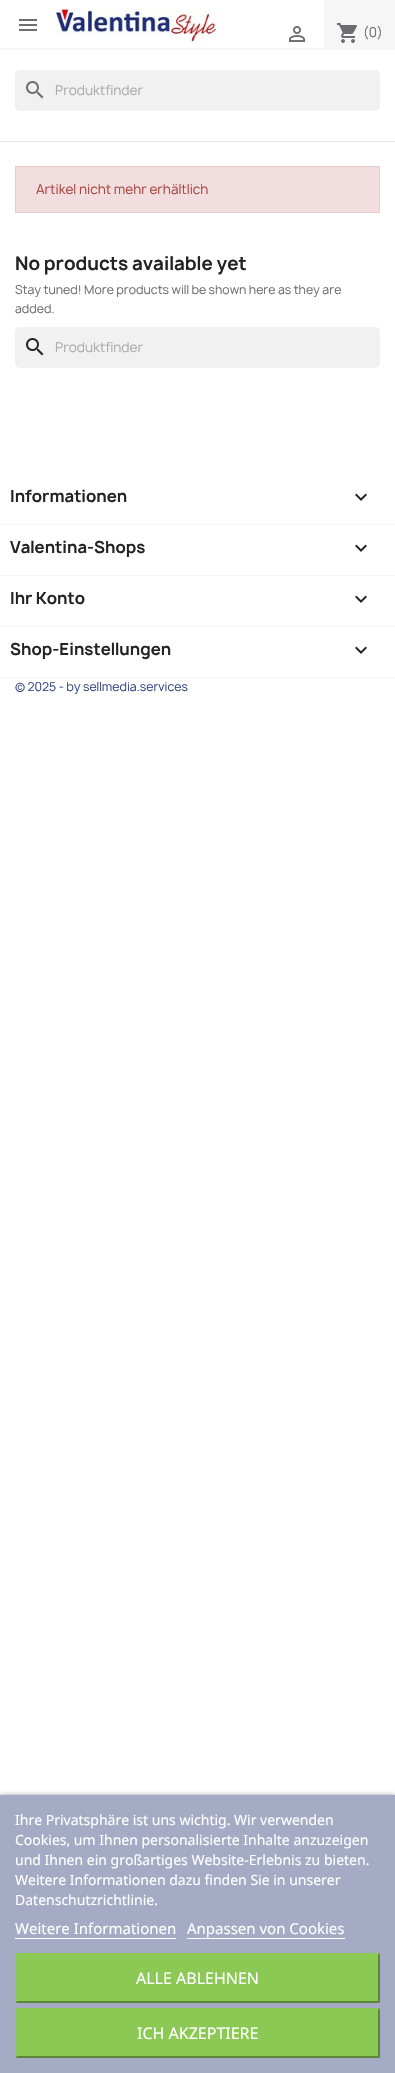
#include "include/core/SkBlurTypes.h"
#include "include/core/SkCanvas.h"
#include "include/core/SkData.h"
#include "include/core/SkFont.h"
#include "include/core/SkFontMgr.h"
#include "include/core/SkImage.h"
#include "include/core/SkMaskFilter.h"
#include "include/core/SkPaint.h"
#include "include/core/SkPathBuilder.h"
#include "include/core/SkTextBlob.h"
#include "include/effects/SkDashPathEffect.h"
#include "include/effects/SkGradientShader.h"
#include "include/utils/SkParsePath.h"

extern sk_sp<SkFontMgr> fontMgr;

static SkFont font(const char* family, int weight, float size, bool italic = false) {
    SkFontStyle style(weight, SkFontStyle::kNormal_Width,
        italic ? SkFontStyle::kItalic_Slant : SkFontStyle::kUpright_Slant);
    SkFont result(fontMgr->matchFamilyStyle(family, style), size);
    result.setSubpixel(true);
    return result;
}

static void drawLabel(SkCanvas* canvas, const char* s, float x, float y, const SkFont& font, SkColor color) {
    SkPaint ink(SkColor4f::FromColor(color));
    ink.setAntiAlias(true);
    canvas->drawString(s, x, y, font, ink);
}

static void fillRect(SkCanvas* canvas, float x, float y, float w, float h, SkColor color) {
    SkPaint ink(SkColor4f::FromColor(color));
    ink.setAntiAlias(true);
    canvas->drawRect(SkRect::MakeXYWH(x, y, w, h), ink);
}

static void fillRRect(SkCanvas* canvas, float x, float y, float w, float h, float radius, SkColor color) {
    SkPaint ink(SkColor4f::FromColor(color));
    ink.setAntiAlias(true);
    canvas->drawRoundRect(SkRect::MakeXYWH(x, y, w, h), radius, radius, ink);
}

static void drawPhoto(SkCanvas* canvas, const char* path, float x, float y, float w, float h) {
    auto image = SkImages::DeferredFromEncodedData(SkData::MakeFromFileName(path));
    canvas->drawImageRect(image, SkRect::MakeXYWH(x, y, w, h), SkSamplingOptions());
}

static SkPath parsePath(const char* data, bool evenOdd = false) {
    SkPath result = *SkParsePath::FromSVGString(data);
    if (evenOdd) result.setFillType(SkPathFillType::kEvenOdd);
    return result;
}

void draw(SkCanvas* canvas) {
    SkPaint paint;
    paint.setAntiAlias(true);
    canvas->clear(0xFFFFFFFF);
    canvas->save();
    canvas->clipRect(SkRect::MakeXYWH(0, 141, 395, 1));
    paint.setColor(0x1C000000);
    paint.setMaskFilter(SkMaskFilter::MakeBlur(kNormal_SkBlurStyle, 0.5f));
    canvas->drawRect(SkRect::MakeXYWH(0, 1, 395, 141), paint);
    paint.setMaskFilter(nullptr);
    canvas->restore();
    fillRect(canvas, 0, 48, 395, 2, 0xFFF6F6F6);
    drawPhoto(canvas, "assets/img1.png", 19, 19, 18, 12);
    drawPhoto(canvas, "assets/img2.png", 56, 9, 160, 32);
    drawPhoto(canvas, "assets/img3.png", 289, 26, 16, 16);
    fillRect(canvas, 324, 0, 71, 48, 0xFFF6F6F6);
    drawPhoto(canvas, "assets/img4.png", 337, 23, 20, 20);
    SkFont font1 = font("Manrope", 400, 13);
    drawLabel(canvas, "(0)", 363, 37, font1, 0xFF6D6D6F);
    fillRRect(canvas, 15, 70, 365, 41, 5, 0xFFF1F1F1);
    drawPhoto(canvas, "assets/img5.png", 26, 81, 18, 18);
    drawLabel(canvas, "Produktfinder", 55, 95, font1, 0xFFAAAAAB);
    paint.setColor(0xFFF2DEDE);
    canvas->drawRect(SkRect::MakeXYWH(15.5f, 166.5f, 364, 46), paint);
    paint.setStroke(true);
    paint.setStrokeWidth(1);
    paint.setColor(0xFFEBCCCC);
    canvas->drawRect(SkRect::MakeXYWH(15.5f, 166.5f, 364, 46), paint);
    drawLabel(canvas, "Artikel nicht mehr erhältlich", 36, 194, font1, 0xFFA94442);
    SkFont font2 = font("Manrope", 700, 18);
    drawLabel(canvas, "No products available yet", 15, 270, font2, 0xFF232323);
    SkFont font3 = font("Manrope", 400, 11.8f);
    drawLabel(canvas, "Stay tuned! More products will be shown here as they are", 15, 294, font3, 0xFF6D6D6F);
    drawLabel(canvas, "added.", 15, 313, font3, 0xFF6D6D6F);
    fillRRect(canvas, 15, 327, 365, 41, 5, 0xFFF1F1F1);
    drawPhoto(canvas, "assets/img6.png", 26, 338, 18, 18);
    drawLabel(canvas, "Produktfinder", 55, 352, font1, 0xFFAAAAAB);
    fillRect(canvas, 0, 524, 395, 1, 0xFFF6F6F6);
    SkFont font4 = font("Manrope", 700, 16);
    drawLabel(canvas, "Informationen", 10, 502, font4, 0xFF232323);
    drawPhoto(canvas, "assets/img7.png", 355, 493, 12, 8);
    fillRect(canvas, 0, 575, 395, 1, 0xFFF6F6F6);
    drawLabel(canvas, "Valentina-Shops", 10, 553, font4, 0xFF232323);
    drawPhoto(canvas, "assets/img7.png", 355, 544, 12, 8);
    fillRect(canvas, 0, 626, 395, 1, 0xFFF6F6F6);
    drawLabel(canvas, "Ihr Konto", 10, 604, font4, 0xFF232323);
    drawPhoto(canvas, "assets/img7.png", 355, 595, 12, 8);
    fillRect(canvas, 0, 677, 395, 1, 0xFFF6F6F6);
    drawLabel(canvas, "Shop-Einstellungen", 10, 655, font4, 0xFF232323);
    drawPhoto(canvas, "assets/img7.png", 355, 646, 12, 8);
    paint.setStroke(false);
    paint.setColor(0xFF707070);
    paint.setMaskFilter(SkMaskFilter::MakeBlur(kNormal_SkBlurStyle, 2.5f));
    canvas->drawRect(SkRect::MakeXYWH(0, 1796, 395, 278), paint);
    paint.setMaskFilter(nullptr);
    fillRect(canvas, 0, 1795, 395, 278, 0xFFA5ABC4);
    SkFont font5 = font("Noto Sans", 400, 14);
    drawLabel(canvas, "Ihre Privatsphäre ist uns wichtig. Wir verwenden", 15, 1825, font5, 0xFFFFFFFF);
    drawLabel(canvas, "Cookies, um Ihnen personalisierte Inhalte anzuzeigen", 15, 1845, font5, 0xFFFFFFFF);
    drawLabel(canvas, "und Ihnen ein großartiges Website-Erlebnis zu bieten.", 15, 1865, font5, 0xFFFFFFFF);
    drawLabel(canvas, "Weitere Informationen dazu finden Sie in unserer", 15, 1885, font5, 0xFFFFFFFF);
    drawLabel(canvas, "Datenschutzrichtlinie.", 15, 1905, font5, 0xFFFFFFFF);
    SkFont font6 = font("Noto Sans", 400, 15);
    drawLabel(canvas, "Weitere Informationen", 15, 1934, font6, 0xFFFFFFFF);
    fillRect(canvas, 15, 1938, 161, 1, 0xFFFFFFFF);
    drawLabel(canvas, "Anpassen von Cookies", 187, 1934, font6, 0xFFFFFFFF);
    fillRect(canvas, 187, 1938, 158, 1, 0xFFFFFFFF);
    fillRect(canvas, 15, 1953, 365, 50, 0xFF8BC954);
    paint.setColor(0xFF5D8638);
    canvas->drawPath(parsePath("M380 1953V2003L378 2001V1955Z"), paint);
    canvas->drawPath(parsePath("M380 2003H15L17 2001H378Z"), paint);
    paint.setColor(0xFF8BC954);
    canvas->drawPath(parsePath("M15 2003V1953L17 1955V2001Z"), paint);
    SkFont font7 = font("Noto Sans", 400, 16);
    drawLabel(canvas, "ALLE ABLEHNEN", 136, 1984, font7, 0xFFFFFFFF);
    fillRect(canvas, 15, 2008, 365, 50, 0xFF8BC954);
    paint.setColor(0xFF5D8638);
    canvas->drawPath(parsePath("M380 2008V2058L378 2056V2010Z"), paint);
    canvas->drawPath(parsePath("M380 2058H15L17 2056H378Z"), paint);
    paint.setColor(0xFF8BC954);
    canvas->drawPath(parsePath("M15 2058V2008L17 2010V2056Z"), paint);
    drawLabel(canvas, "ICH AKZEPTIERE", 137, 2039, font7, 0xFFFFFFFF);
    drawLabel(canvas, "© 2025 - by sellmedia.services", 15, 691, font3, 0xFF344582);
}
